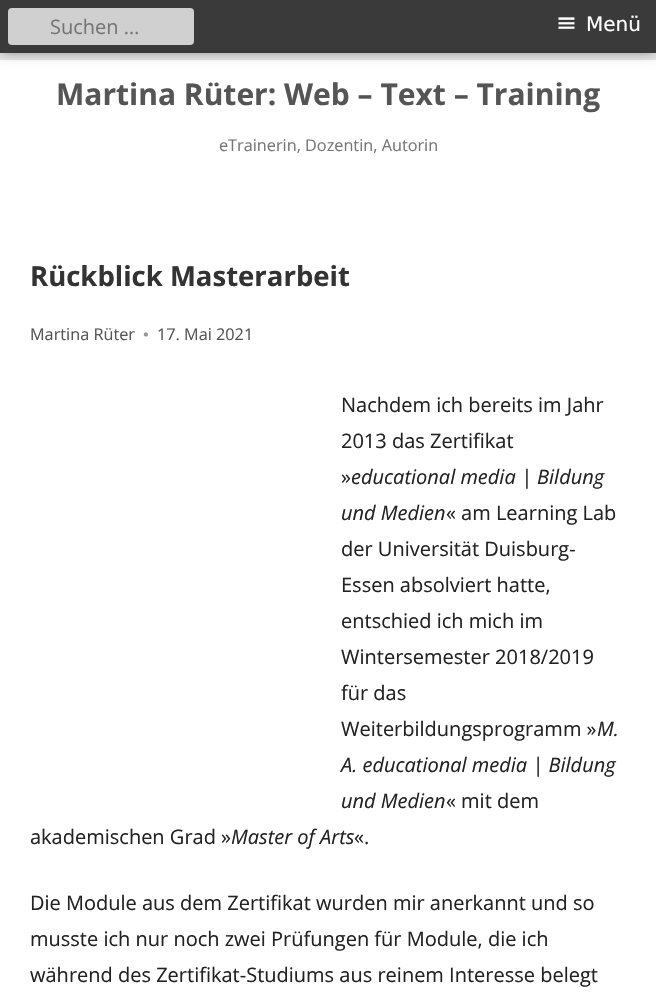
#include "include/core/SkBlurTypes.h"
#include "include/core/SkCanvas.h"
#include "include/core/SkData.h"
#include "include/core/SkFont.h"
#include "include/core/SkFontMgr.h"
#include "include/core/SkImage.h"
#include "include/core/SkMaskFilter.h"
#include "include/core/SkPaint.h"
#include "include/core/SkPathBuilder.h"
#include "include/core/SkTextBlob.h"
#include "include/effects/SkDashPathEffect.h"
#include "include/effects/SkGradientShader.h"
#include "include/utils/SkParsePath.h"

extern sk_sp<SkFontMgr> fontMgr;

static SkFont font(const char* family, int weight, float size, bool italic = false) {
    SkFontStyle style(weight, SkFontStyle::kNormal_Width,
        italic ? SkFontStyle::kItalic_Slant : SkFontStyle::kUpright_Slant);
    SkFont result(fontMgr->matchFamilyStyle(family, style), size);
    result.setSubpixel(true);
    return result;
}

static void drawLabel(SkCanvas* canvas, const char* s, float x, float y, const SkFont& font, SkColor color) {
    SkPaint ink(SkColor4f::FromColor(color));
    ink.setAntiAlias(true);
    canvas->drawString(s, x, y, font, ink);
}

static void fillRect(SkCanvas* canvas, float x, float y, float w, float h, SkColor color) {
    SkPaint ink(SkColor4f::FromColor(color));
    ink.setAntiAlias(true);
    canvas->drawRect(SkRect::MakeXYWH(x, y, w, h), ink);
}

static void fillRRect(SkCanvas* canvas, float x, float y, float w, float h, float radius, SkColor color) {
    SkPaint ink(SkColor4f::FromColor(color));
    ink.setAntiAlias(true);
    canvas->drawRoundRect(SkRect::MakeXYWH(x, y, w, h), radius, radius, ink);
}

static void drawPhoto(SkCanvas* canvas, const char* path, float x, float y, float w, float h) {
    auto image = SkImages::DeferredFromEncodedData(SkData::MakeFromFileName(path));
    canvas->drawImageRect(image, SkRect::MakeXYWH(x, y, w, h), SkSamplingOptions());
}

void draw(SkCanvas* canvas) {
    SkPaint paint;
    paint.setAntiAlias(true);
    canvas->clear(0xFFEAEAEA);
    fillRect(canvas, 0, 60, 656, 939, 0xFFFFFFFF);
    paint.setColor(0x66000000);
    paint.setMaskFilter(SkMaskFilter::MakeBlur(kNormal_SkBlurStyle, 6));
    canvas->drawRect(SkRect::MakeXYWH(0, 0, 656, 53), paint);
    paint.setMaskFilter(nullptr);
    fillRect(canvas, 0, 0, 656, 53, 0xFF3A3A3A);
    fillRRect(canvas, 8, 8, 186, 37, 4, 0xFFD0D0D0);
    SkFont font1 = font("Open Sans", 400, 20);
    drawLabel(canvas, "Suchen …", 50, 34, font1, 0xFF757575);
    SkFont font2 = font("DejaVu Sans", 400, 25);
    drawLabel(canvas, "≡", 556, 31, font2, 0xFFFFFFFF);
    SkFont font3 = font("DejaVu Sans", 400, 20);
    drawLabel(canvas, "Menü", 586, 31, font3, 0xFFFFFFFF);
    SkFont font4 = font("Open Sans", 700, 30);
    drawLabel(canvas, "Martina Rüter: Web – Text – Training", 56, 105, font4, 0xFF555555);
    SkFont font5 = font("Open Sans", 400, 16.25f);
    drawLabel(canvas, "eTrainerin, Dozentin, Autorin", 219, 151, font5, 0xFF757575);
    SkFont font6 = font("Open Sans", 700, 27.5f);
    drawLabel(canvas, "Rückblick Masterarbeit", 30, 286, font6, 0xFF333333);
    drawLabel(canvas, "Martina Rüter", 30, 340, font5, 0xFF555555);
    drawPhoto(canvas, "assets/img1.png", 143, 332, 5, 5);
    drawLabel(canvas, "17. Mai 2021", 157, 340, font5, 0xFF555555);
    drawLabel(canvas, "Nachdem ich bereits im Jahr", 341, 412, font1, 0xFF222222);
    drawLabel(canvas, "2013 das Zertifikat", 341, 448, font1, 0xFF222222);
    drawLabel(canvas, "»", 341, 484, font1, 0xFF222222);
    SkFont font7 = font("Open Sans", 400, 20, true);
    drawLabel(canvas, "educational media | Bildung", 351, 484, font7, 0xFF222222);
    drawLabel(canvas, "und Medien", 341, 520, font7, 0xFF222222);
    drawLabel(canvas, "« am Learning Lab", 446, 520, font1, 0xFF222222);
    drawLabel(canvas, "der Universität Duisburg-", 341, 556, font1, 0xFF222222);
    drawLabel(canvas, "Essen absolviert hatte,", 341, 592, font1, 0xFF222222);
    drawLabel(canvas, "entschied ich mich im", 341, 628, font1, 0xFF222222);
    drawLabel(canvas, "Wintersemester 2018/2019", 341, 664, font1, 0xFF222222);
    drawLabel(canvas, "für das", 341, 700, font1, 0xFF222222);
    drawLabel(canvas, "Weiterbildungsprogramm »", 341, 736, font1, 0xFF222222);
    drawLabel(canvas, "M.", 597, 736, font7, 0xFF222222);
    drawLabel(canvas, "A. educational media | Bildung", 341, 772, font7, 0xFF222222);
    drawLabel(canvas, "und Medien", 341, 808, font7, 0xFF222222);
    drawLabel(canvas, "« mit dem", 446, 808, font1, 0xFF222222);
    drawLabel(canvas, "akademischen Grad »", 30, 844, font1, 0xFF222222);
    drawLabel(canvas, "Master of Arts", 231, 844, font7, 0xFF222222);
    drawLabel(canvas, "«.", 354, 844, font1, 0xFF222222);
    drawLabel(canvas, "Die Module aus dem Zertifikat wurden mir anerkannt und so", 30, 910, font1, 0xFF222222);
    drawLabel(canvas, "musste ich nur noch zwei Prüfungen für Module, die ich", 30, 946, font1, 0xFF222222);
    drawLabel(canvas, "während des Zertifikat-Studiums aus reinem Interesse belegt", 30, 982, font1, 0xFF222222);
}
